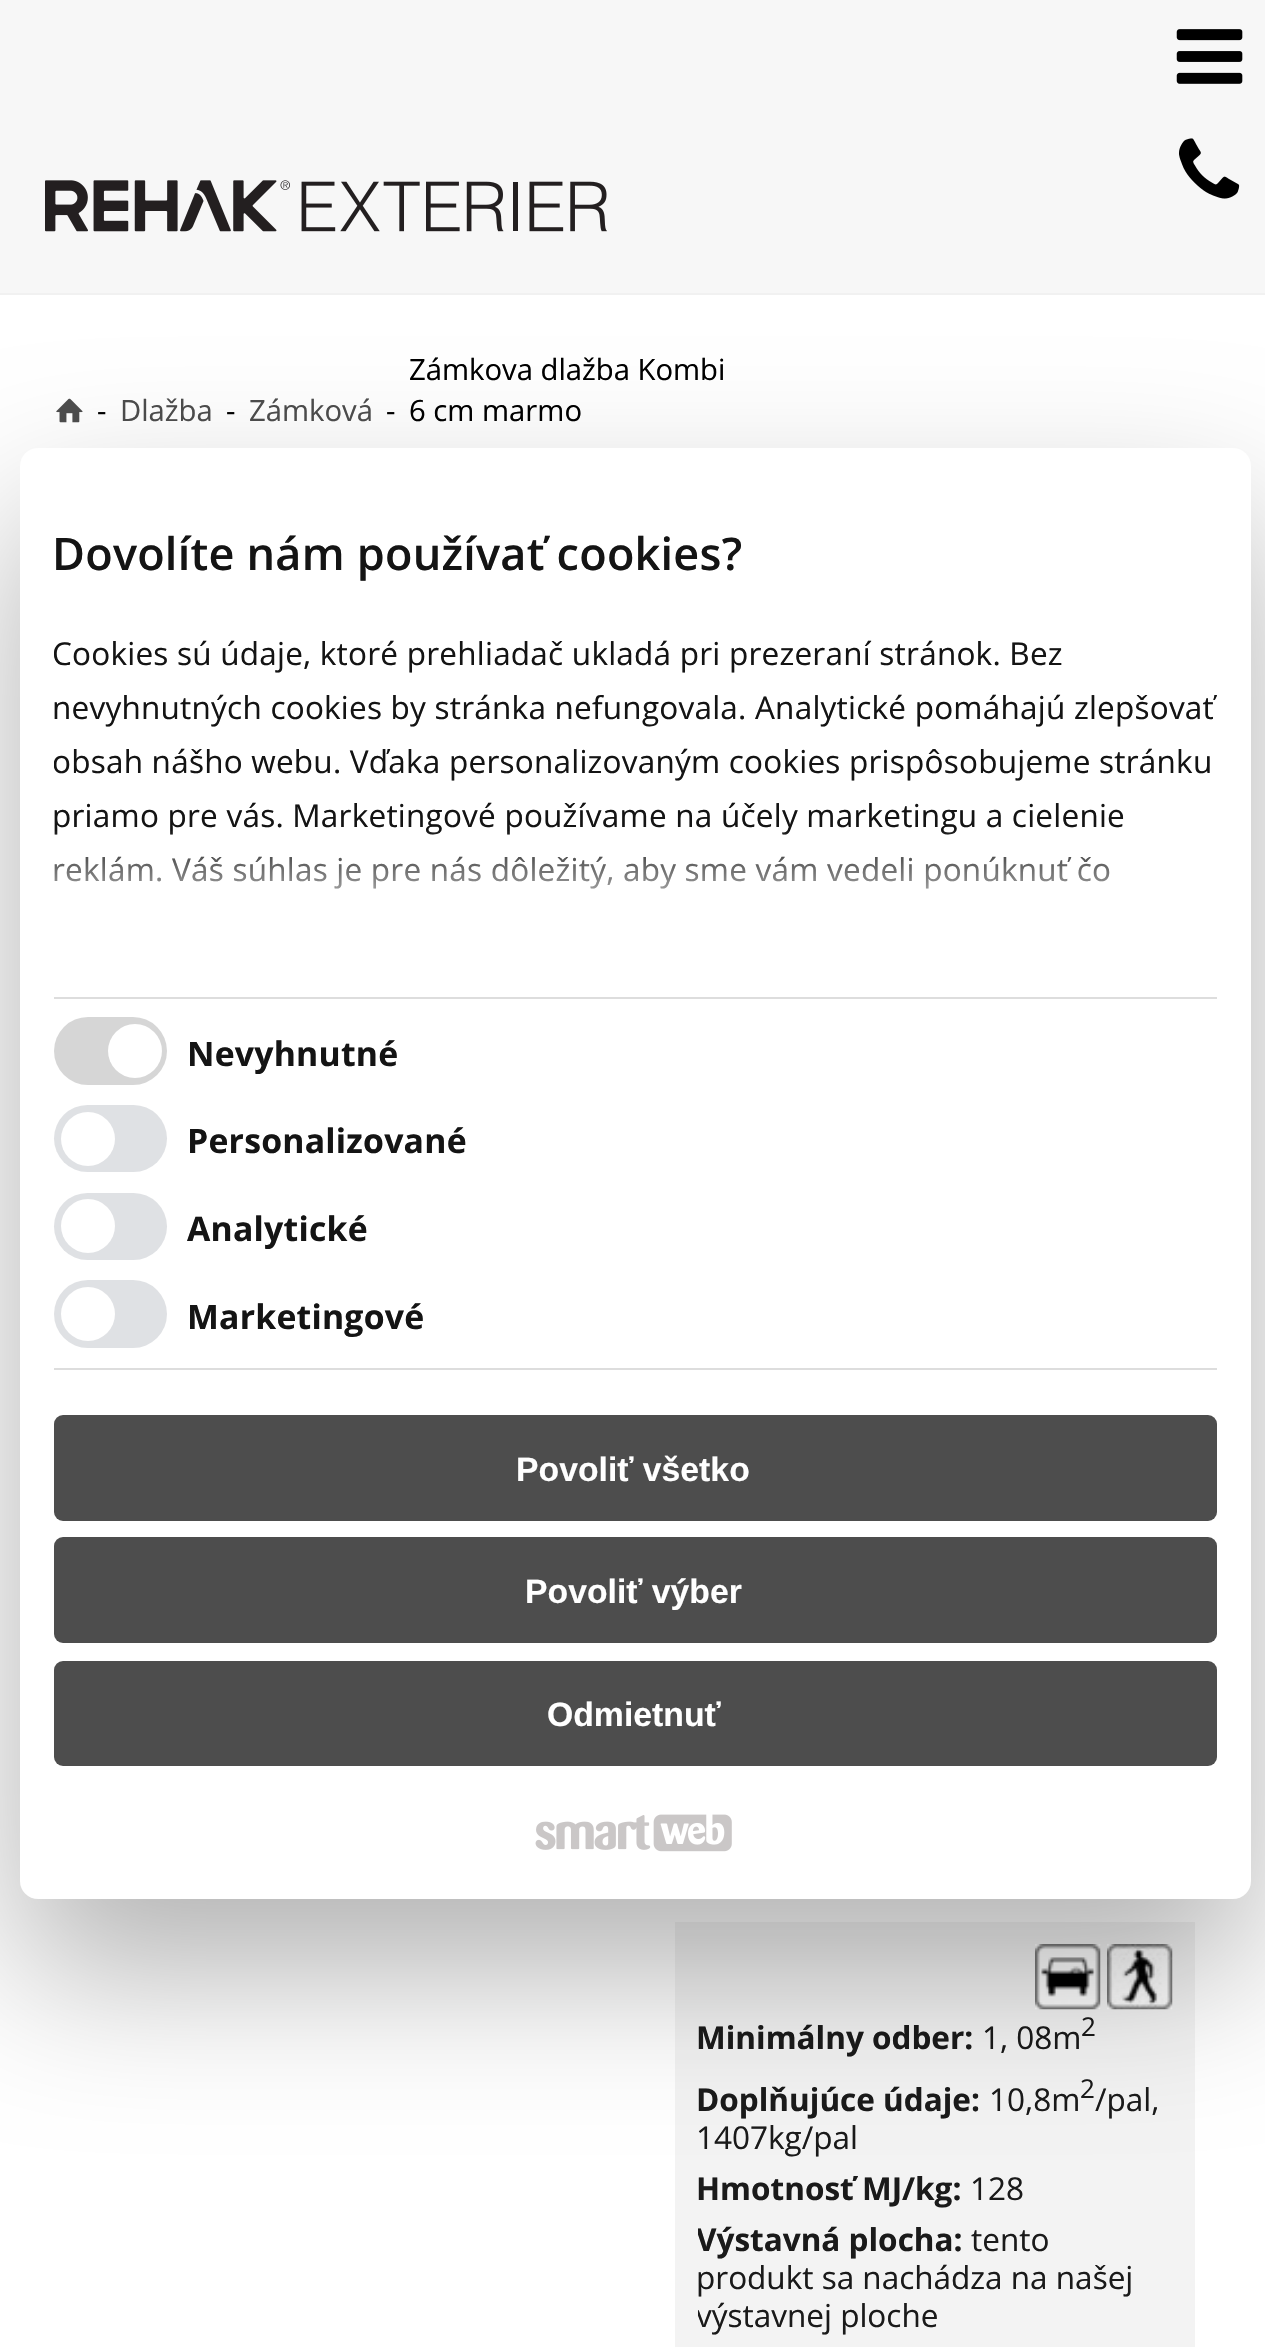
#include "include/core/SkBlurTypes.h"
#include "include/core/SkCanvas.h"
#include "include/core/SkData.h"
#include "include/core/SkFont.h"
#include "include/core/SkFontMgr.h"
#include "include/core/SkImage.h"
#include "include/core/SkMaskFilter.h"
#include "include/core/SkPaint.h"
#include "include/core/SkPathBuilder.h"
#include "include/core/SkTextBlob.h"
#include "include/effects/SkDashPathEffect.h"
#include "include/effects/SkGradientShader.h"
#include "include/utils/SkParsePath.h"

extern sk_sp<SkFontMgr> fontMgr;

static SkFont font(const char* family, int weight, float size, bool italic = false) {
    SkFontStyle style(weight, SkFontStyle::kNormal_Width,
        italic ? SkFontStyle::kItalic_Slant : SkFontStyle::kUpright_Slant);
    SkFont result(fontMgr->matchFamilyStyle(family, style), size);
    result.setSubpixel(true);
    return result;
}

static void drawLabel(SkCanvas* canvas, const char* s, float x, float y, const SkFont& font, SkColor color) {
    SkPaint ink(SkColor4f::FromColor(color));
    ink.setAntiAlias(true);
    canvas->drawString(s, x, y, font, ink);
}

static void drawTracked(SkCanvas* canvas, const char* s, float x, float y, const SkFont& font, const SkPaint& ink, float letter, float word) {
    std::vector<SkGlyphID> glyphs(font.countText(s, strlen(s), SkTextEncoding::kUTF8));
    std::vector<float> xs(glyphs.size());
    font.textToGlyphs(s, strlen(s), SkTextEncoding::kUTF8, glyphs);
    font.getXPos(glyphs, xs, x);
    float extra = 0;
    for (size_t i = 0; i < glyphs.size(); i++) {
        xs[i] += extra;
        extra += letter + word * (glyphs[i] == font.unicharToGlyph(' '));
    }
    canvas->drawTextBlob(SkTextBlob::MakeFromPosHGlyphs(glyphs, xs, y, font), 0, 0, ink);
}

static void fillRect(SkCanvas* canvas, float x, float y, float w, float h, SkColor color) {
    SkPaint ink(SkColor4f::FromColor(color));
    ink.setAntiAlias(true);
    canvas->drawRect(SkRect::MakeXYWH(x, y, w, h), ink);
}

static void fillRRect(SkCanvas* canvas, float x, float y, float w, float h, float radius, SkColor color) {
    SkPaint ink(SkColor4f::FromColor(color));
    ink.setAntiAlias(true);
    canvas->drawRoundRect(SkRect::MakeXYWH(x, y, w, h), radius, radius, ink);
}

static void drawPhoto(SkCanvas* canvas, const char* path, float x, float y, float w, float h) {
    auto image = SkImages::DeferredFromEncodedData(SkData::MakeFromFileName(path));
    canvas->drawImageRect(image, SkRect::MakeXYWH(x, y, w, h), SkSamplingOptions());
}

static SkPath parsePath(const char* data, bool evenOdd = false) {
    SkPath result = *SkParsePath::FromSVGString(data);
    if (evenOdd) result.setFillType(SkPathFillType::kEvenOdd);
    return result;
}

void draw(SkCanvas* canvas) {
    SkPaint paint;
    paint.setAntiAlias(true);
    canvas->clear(0xFFFFFFFF);
    fillRect(canvas, 0, 0, 1265, 293, 0xFFF7F7F7);
    drawPhoto(canvas, "assets/img1.png", 1176, 29, 67, 55);
    drawPhoto(canvas, "assets/img2.png", 1179, 138, 61, 61);
    fillRect(canvas, 0, 293, 1265, 2, 0xFFF1F1F1);
    drawPhoto(canvas, "assets/img3.png", 45, 180, 562, 52);
    drawPhoto(canvas, "assets/img4.png", 56, 398, 27, 25);
    SkFont font1 = font("Open Sans", 400, 29.25f);
    drawLabel(canvas, "-", 97, 421, font1, 0xFF000000);
    drawLabel(canvas, "Dlažba", 120, 421, font1, 0xFF4D4D4D);
    drawLabel(canvas, "-", 226, 421, font1, 0xFF000000);
    drawLabel(canvas, "Zámková", 249, 421, font1, 0xFF4D4D4D);
    drawLabel(canvas, "-", 386, 421, font1, 0xFF000000);
    drawLabel(canvas, "Zámkova dlažba Kombi", 409, 380, font1, 0xFF000000);
    drawLabel(canvas, "6 cm marmo", 409, 421, font1, 0xFF000000);
    fillRect(canvas, 675, 1922, 520, 425, 0xFFF3F3F3);
    drawPhoto(canvas, "assets/img5.png", 1035, 1944, 66, 66);
    drawPhoto(canvas, "assets/img6.png", 1107, 1944, 66, 66);
    SkFont font2 = font("Open Sans", 700, 31.5f);
    drawLabel(canvas, "Minimálny odber:", 696, 2049, font2, 0xFF1A1A1A);
    SkFont font3 = font("Open Sans", 400, 31.5f);
    drawLabel(canvas, "1, 08m", 982, 2049, font3, 0xFF1A1A1A);
    SkFont font4 = font("Open Sans", 400, 26);
    drawLabel(canvas, "2", 1081, 2036, font4, 0xFF1A1A1A);
    drawLabel(canvas, "Doplňujúce údaje:", 696, 2111, font2, 0xFF1A1A1A);
    drawLabel(canvas, "10,8m", 989, 2111, font3, 0xFF1A1A1A);
    drawLabel(canvas, "2", 1080, 2098, font4, 0xFF1A1A1A);
    drawLabel(canvas, "/pal,", 1095, 2111, font3, 0xFF1A1A1A);
    drawLabel(canvas, "1407kg/pal", 696, 2149, font3, 0xFF1A1A1A);
    drawLabel(canvas, "Hmotnosť MJ/kg:", 696, 2200, font2, 0xFF1A1A1A);
    drawLabel(canvas, "128", 970, 2200, font3, 0xFF1A1A1A);
    canvas->save();
    canvas->clipRect(SkRect::MakeXYWH(698, 2223, 474, 113));
    drawLabel(canvas, "Výstavná plocha:", 696, 2251, font2, 0xFF1A1A1A);
    canvas->restore();
    drawLabel(canvas, "tento", 971, 2251, font3, 0xFF1A1A1A);
    drawLabel(canvas, "produkt sa nachádza na našej", 696, 2289, font3, 0xFF1A1A1A);
    canvas->save();
    canvas->clipRect(SkRect::MakeXYWH(698, 2223, 474, 113));
    drawLabel(canvas, "výstavnej ploche", 696, 2327, font3, 0xFF1A1A1A);
    canvas->restore();
    paint.setColor(0x4D000000);
    paint.setMaskFilter(SkMaskFilter::MakeBlur(kNormal_SkBlurStyle, 76.5f));
    canvas->drawRoundRect(SkRect::MakeXYWH(20, 520, 1231, 1451), 18, 18, paint);
    paint.setMaskFilter(nullptr);
    fillRRect(canvas, 20, 448, 1231, 1451, 18, 0xFFFFFFFF);
    SkFont font5 = font("Open Sans", 600, 45);
    paint.setColor(0xFF141414);
    drawTracked(canvas, "Dovolíte nám používať cookies?", 52, 570, font5, paint, 0.23f, 0);
    canvas->save();
    canvas->clipRect(SkRect::MakeXYWH(54, 527, 1163, 470));
    drawTracked(canvas, "Cookies sú údaje, ktoré prehliadač ukladá pri prezeraní stránok. Bez", 52, 665, font3, paint, 0.23f, 0);
    canvas->restore();
    drawTracked(canvas, "nevyhnutných cookies by stránka nefungovala. Analytické pomáhajú zlepšovať", 52, 719, font3, paint, 0.23f, 0);
    canvas->save();
    canvas->clipRect(SkRect::MakeXYWH(54, 527, 1163, 470));
    drawTracked(canvas, "obsah nášho webu. Vďaka personalizovaným cookies prispôsobujeme stránku", 52, 773, font3, paint, 0.23f, 0);
    canvas->restore();
    drawTracked(canvas, "priamo pre vás. Marketingové používame na účely marketingu a cielenie", 52, 827, font3, paint, 0.23f, 0);
    drawTracked(canvas, "reklám. Váš súhlas je pre nás dôležitý, aby sme vám vedeli ponúknuť čo", 52, 881, font3, paint, 0.23f, 0);
    paint.setColor(0xFFF1F1F1);
    canvas->drawPath(parsePath("M65 972H1206C1212 972 1217 977 1217 983V997H54V983C54 977 59 972 65 972Z"), paint);
    {
        const SkColor colors[] = {0xFFFFFFFF, 0xCCFFFFFF, 0x00FFFFFF};
        const float stops[] = {0, 0.5f, 1};
        const SkPoint ends[] = {{635, 998}, {635, 829}};
        paint.setShader(SkGradientShader::MakeLinear(ends, colors, stops, 3, SkTileMode::kClamp));
        paint.setAlpha(255);
    }
    canvas->drawRect(SkRect::MakeXYWH(54, 831, 1163, 166), paint);
    fillRect(canvas, 54, 997, 1163, 2, 0xFFDDDDDD);
    fillRect(canvas, 54, 1368, 1163, 2, 0xFFDDDDDD);
    fillRRect(canvas, 54, 1017, 113, 68, 34, 0xFFD6D6D6);
    paint.setShader(nullptr);
    paint.setColor(0xFFFFFFFF);
    canvas->drawCircle(135, 1051, 27, paint);
    SkFont font6 = font("Open Sans", 700, 33.75f);
    paint.setColor(0xFF141414);
    drawTracked(canvas, "Nevyhnutné", 187, 1066, font6, paint, 0.23f, 0);
    fillRRect(canvas, 54, 1105, 113, 67, 33.5f, 0xFFDFE1E4);
    paint.setColor(0xFFFFFFFF);
    canvas->drawCircle(88, 1139, 27, paint);
    paint.setColor(0xFF141414);
    drawTracked(canvas, "Personalizované", 187, 1153, font6, paint, 0.23f, 0);
    fillRRect(canvas, 54, 1193, 113, 67, 33.5f, 0xFFDFE1E4);
    paint.setColor(0xFFFFFFFF);
    canvas->drawCircle(88, 1226, 27, paint);
    paint.setColor(0xFF141414);
    drawTracked(canvas, "Analytické", 187, 1241, font6, paint, 0.23f, 0);
    fillRRect(canvas, 54, 1280, 113, 68, 34, 0xFFDFE1E4);
    paint.setColor(0xFFFFFFFF);
    canvas->drawCircle(88, 1314, 27, paint);
    paint.setColor(0xFF141414);
    drawTracked(canvas, "Marketingové", 187, 1329, font6, paint, 0.23f, 0);
    fillRRect(canvas, 54, 1415, 1163, 106, 9, 0xFF4D4D4D);
    SkFont font7 = font("Liberation Sans", 700, 33.75f);
    drawLabel(canvas, "Povoliť všetko", 516, 1481, font7, 0xFFFFFFFF);
    fillRRect(canvas, 54, 1537, 1163, 106, 9, 0xFF4D4D4D);
    drawLabel(canvas, "Povoliť výber", 525, 1603, font7, 0xFFFFFFFF);
    fillRRect(canvas, 54, 1661, 1163, 105, 9, 0xFF4D4D4D);
    drawLabel(canvas, "Odmietnuť", 547, 1726, font7, 0xFFFFFFFF);
    drawPhoto(canvas, "assets/img7.png", 535, 1815, 116, 35);
    drawPhoto(canvas, "assets/img8.png", 653, 1814, 79, 38);
}
